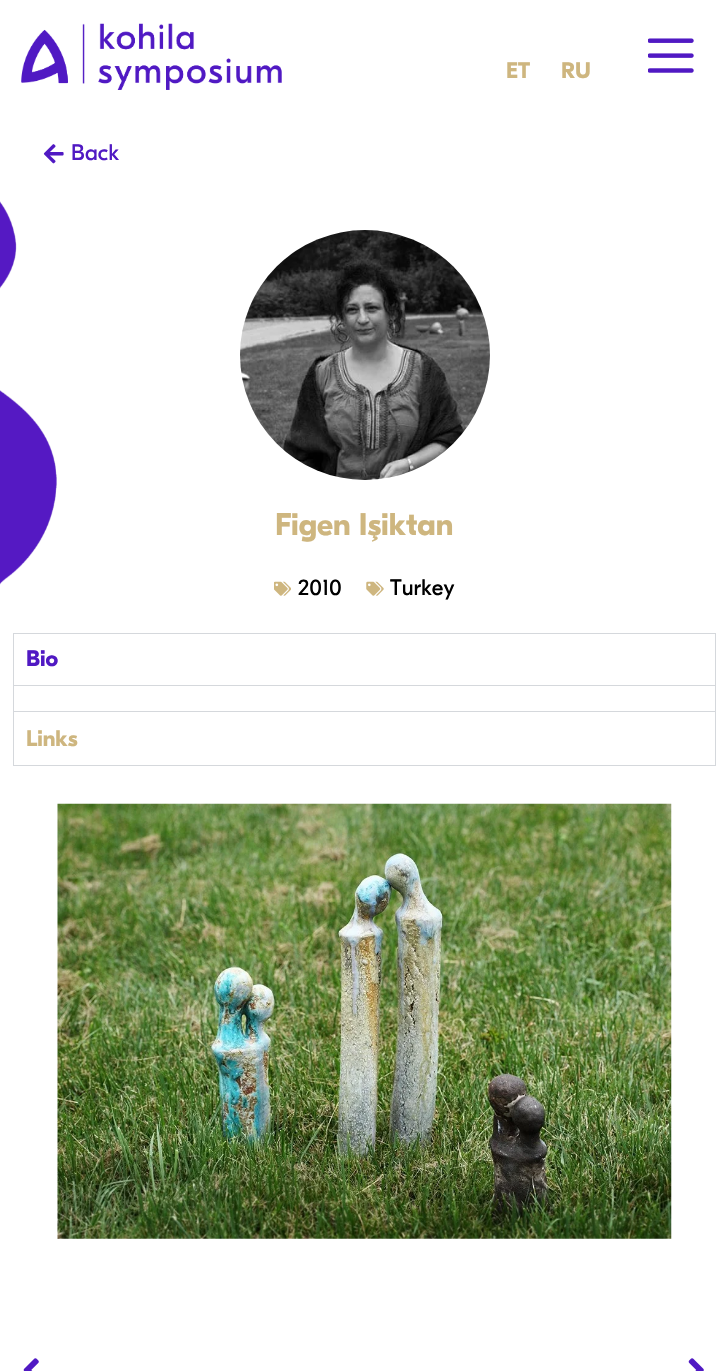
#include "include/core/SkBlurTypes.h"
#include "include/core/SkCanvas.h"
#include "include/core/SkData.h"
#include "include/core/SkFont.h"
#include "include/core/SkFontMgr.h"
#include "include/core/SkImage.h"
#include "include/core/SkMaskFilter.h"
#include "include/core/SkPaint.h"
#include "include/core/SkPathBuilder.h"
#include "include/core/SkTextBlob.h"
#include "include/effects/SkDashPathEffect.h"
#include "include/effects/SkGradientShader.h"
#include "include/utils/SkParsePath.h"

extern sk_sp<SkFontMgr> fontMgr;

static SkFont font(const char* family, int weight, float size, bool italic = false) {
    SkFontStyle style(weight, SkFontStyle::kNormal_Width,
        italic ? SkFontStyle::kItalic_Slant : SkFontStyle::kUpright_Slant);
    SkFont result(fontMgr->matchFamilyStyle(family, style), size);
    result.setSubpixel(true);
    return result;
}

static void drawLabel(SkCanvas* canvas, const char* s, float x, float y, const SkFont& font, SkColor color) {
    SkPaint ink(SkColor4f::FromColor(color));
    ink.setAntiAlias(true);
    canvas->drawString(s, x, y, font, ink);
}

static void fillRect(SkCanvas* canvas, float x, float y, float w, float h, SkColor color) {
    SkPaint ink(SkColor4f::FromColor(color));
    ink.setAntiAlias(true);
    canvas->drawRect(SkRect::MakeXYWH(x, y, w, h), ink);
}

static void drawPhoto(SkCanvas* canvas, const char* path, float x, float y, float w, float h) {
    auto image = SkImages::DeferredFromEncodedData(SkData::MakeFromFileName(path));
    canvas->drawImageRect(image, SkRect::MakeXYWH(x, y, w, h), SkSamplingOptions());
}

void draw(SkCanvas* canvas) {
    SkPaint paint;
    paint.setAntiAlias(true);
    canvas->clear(0xFFFFFFFF);
    drawPhoto(canvas, "assets/img1.png", 21, 23, 261, 67);
    SkFont font1 = font("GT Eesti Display", 700, 22.5f);
    drawLabel(canvas, "ET", 506, 78, font1, 0xFFCEB67F);
    drawLabel(canvas, "RU", 561, 78, font1, 0xFFCEB67F);
    drawPhoto(canvas, "assets/img2.png", 648, 38, 46, 35);
    drawPhoto(canvas, "assets/img3.png", 43, 144, 21, 20);
    SkFont font2 = font("GT Eesti Display", 400, 22.5f);
    drawLabel(canvas, "Back", 71, 160, font2, 0xFF5019C3);
    drawPhoto(canvas, "assets/img4.png", 0, 201, 57, 384);
    drawPhoto(canvas, "assets/img5.png", 57, 803, 615, 436);
    drawPhoto(canvas, "assets/img6.png", 240, 230, 250, 250);
    SkFont font3 = font("GT Eesti Display", 700, 31.25f);
    drawLabel(canvas, "Figen Işiktan", 275, 535, font3, 0xFFCEB67F);
    drawPhoto(canvas, "assets/img7.png", 274, 581, 17, 15);
    drawLabel(canvas, "2010", 298, 595, font2, 0xFF000000);
    drawPhoto(canvas, "assets/img8.png", 366, 581, 18, 15);
    drawLabel(canvas, "Turkey", 390, 595, font2, 0xFF000000);
    fillRect(canvas, 13, 765, 703, 1, 0xFFD5D8DC);
    fillRect(canvas, 13, 633, 703, 1, 0xFFD5D8DC);
    fillRect(canvas, 715, 633, 1, 52, 0xFFD5D8DC);
    fillRect(canvas, 13, 633, 1, 52, 0xFFD5D8DC);
    drawLabel(canvas, "Bio", 26, 666, font1, 0xFF5019C3);
    fillRect(canvas, 13, 685, 703, 1, 0xFFD5D8DC);
    fillRect(canvas, 715, 685, 1, 26, 0xFFD5D8DC);
    fillRect(canvas, 13, 685, 1, 26, 0xFFD5D8DC);
    fillRect(canvas, 13, 711, 703, 1, 0xFFD5D8DC);
    fillRect(canvas, 715, 711, 1, 54, 0xFFD5D8DC);
    fillRect(canvas, 13, 711, 1, 54, 0xFFD5D8DC);
    drawLabel(canvas, "Links", 26, 746, font1, 0xFFCEB67F);
    drawPhoto(canvas, "assets/img9.png", 23, 1358, 16, 13);
    drawPhoto(canvas, "assets/img10.png", 688, 1358, 16, 13);
}
